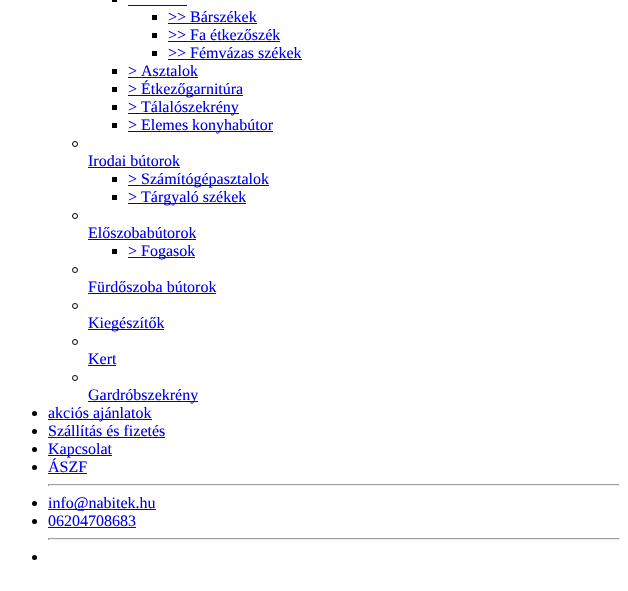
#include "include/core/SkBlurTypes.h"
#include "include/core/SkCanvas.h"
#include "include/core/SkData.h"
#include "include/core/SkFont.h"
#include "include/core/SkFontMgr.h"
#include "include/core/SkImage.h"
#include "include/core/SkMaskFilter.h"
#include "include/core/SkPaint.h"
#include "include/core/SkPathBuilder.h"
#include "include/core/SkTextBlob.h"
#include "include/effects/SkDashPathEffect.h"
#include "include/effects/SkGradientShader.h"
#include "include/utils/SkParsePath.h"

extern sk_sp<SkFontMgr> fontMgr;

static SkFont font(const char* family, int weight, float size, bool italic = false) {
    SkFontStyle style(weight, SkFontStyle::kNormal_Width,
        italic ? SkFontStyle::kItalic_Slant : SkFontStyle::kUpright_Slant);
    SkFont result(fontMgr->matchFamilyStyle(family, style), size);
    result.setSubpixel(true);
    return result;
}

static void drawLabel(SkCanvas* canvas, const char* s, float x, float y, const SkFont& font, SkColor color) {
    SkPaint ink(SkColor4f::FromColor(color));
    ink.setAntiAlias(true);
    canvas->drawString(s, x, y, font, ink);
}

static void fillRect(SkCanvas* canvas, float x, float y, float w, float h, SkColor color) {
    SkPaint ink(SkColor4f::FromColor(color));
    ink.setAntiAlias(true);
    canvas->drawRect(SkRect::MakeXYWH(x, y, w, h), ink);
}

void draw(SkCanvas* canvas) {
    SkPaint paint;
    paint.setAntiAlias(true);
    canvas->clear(0xFFFFFFFF);
    fillRect(canvas, 112, 0, 5, 2, 0xFF000000);
    fillRect(canvas, 128, 5, 59, 1, 0xFF0000EE);
    fillRect(canvas, 152, 15, 5, 5, 0xFF000000);
    SkFont font1 = font("Liberation Serif", 400, 16);
    drawLabel(canvas, ">> Bárszékek", 168, 22, font1, 0xFF0000EE);
    fillRect(canvas, 168, 23, 89, 1, 0xFF0000EE);
    fillRect(canvas, 152, 33, 5, 5, 0xFF000000);
    drawLabel(canvas, ">> Fa étkezőszék", 168, 40, font1, 0xFF0000EE);
    fillRect(canvas, 168, 41, 112, 1, 0xFF0000EE);
    fillRect(canvas, 152, 51, 5, 5, 0xFF000000);
    drawLabel(canvas, ">> Fémvázas székek", 168, 58, font1, 0xFF0000EE);
    fillRect(canvas, 168, 59, 134, 1, 0xFF0000EE);
    fillRect(canvas, 112, 69, 5, 5, 0xFF000000);
    drawLabel(canvas, "> Asztalok", 128, 76, font1, 0xFF0000EE);
    fillRect(canvas, 128, 77, 70, 1, 0xFF0000EE);
    fillRect(canvas, 112, 87, 5, 5, 0xFF000000);
    fillRect(canvas, 128, 95, 115, 1, 0xFF0000EE);
    drawLabel(canvas, "> Étkezőgarnitúra", 128, 94, font1, 0xFF0000EE);
    fillRect(canvas, 112, 105, 5, 5, 0xFF000000);
    fillRect(canvas, 128, 113, 111, 1, 0xFF0000EE);
    drawLabel(canvas, "> Tálalószekrény", 128, 112, font1, 0xFF0000EE);
    fillRect(canvas, 112, 123, 5, 5, 0xFF000000);
    fillRect(canvas, 128, 131, 145, 1, 0xFF0000EE);
    drawLabel(canvas, "> Elemes konyhabútor", 128, 130, font1, 0xFF0000EE);
    paint.setStroke(true);
    paint.setStrokeWidth(1);
    paint.setColor(0xFF000000);
    canvas->drawCircle(75, 144, 2.5f, paint);
    drawLabel(canvas, "Irodai bútorok", 88, 166, font1, 0xFF0000EE);
    fillRect(canvas, 88, 167, 92, 1, 0xFF0000EE);
    fillRect(canvas, 112, 177, 5, 5, 0xFF000000);
    fillRect(canvas, 128, 185, 141, 1, 0xFF0000EE);
    drawLabel(canvas, "> Számítógépasztalok", 128, 184, font1, 0xFF0000EE);
    fillRect(canvas, 112, 195, 5, 5, 0xFF000000);
    fillRect(canvas, 128, 203, 118, 1, 0xFF0000EE);
    drawLabel(canvas, "> Tárgyaló székek", 128, 202, font1, 0xFF0000EE);
    canvas->drawCircle(75, 216, 2.5f, paint);
    drawLabel(canvas, "Előszobabútorok", 88, 238, font1, 0xFF0000EE);
    fillRect(canvas, 88, 239, 108, 1, 0xFF0000EE);
    fillRect(canvas, 112, 249, 5, 5, 0xFF000000);
    fillRect(canvas, 128, 257, 67, 1, 0xFF0000EE);
    drawLabel(canvas, "> Fogasok", 128, 256, font1, 0xFF0000EE);
    canvas->drawCircle(75, 270, 2.5f, paint);
    drawLabel(canvas, "Fürdőszoba bútorok", 88, 292, font1, 0xFF0000EE);
    fillRect(canvas, 88, 293, 128, 1, 0xFF0000EE);
    canvas->drawCircle(75, 306, 2.5f, paint);
    fillRect(canvas, 88, 329, 76, 1, 0xFF0000EE);
    drawLabel(canvas, "Kiegészítők", 88, 328, font1, 0xFF0000EE);
    canvas->drawCircle(75, 342, 2.5f, paint);
    drawLabel(canvas, "Kert", 88, 364, font1, 0xFF0000EE);
    fillRect(canvas, 88, 365, 28, 1, 0xFF0000EE);
    canvas->drawCircle(75, 378, 2.5f, paint);
    fillRect(canvas, 88, 401, 110, 1, 0xFF0000EE);
    drawLabel(canvas, "Gardróbszekrény", 88, 400, font1, 0xFF0000EE);
    paint.setStroke(false);
    canvas->drawCircle(34.5f, 413.5f, 2.5f, paint);
    fillRect(canvas, 48, 419, 104, 1, 0xFF0000EE);
    drawLabel(canvas, "akciós ajánlatok", 48, 418, font1, 0xFF0000EE);
    canvas->drawCircle(34.5f, 431.5f, 2.5f, paint);
    drawLabel(canvas, "Szállítás és fizetés", 48, 436, font1, 0xFF0000EE);
    fillRect(canvas, 48, 437, 117, 1, 0xFF0000EE);
    canvas->drawCircle(34.5f, 449.5f, 2.5f, paint);
    fillRect(canvas, 48, 455, 64, 1, 0xFF0000EE);
    drawLabel(canvas, "Kapcsolat", 48, 454, font1, 0xFF0000EE);
    canvas->drawCircle(34.5f, 467.5f, 2.5f, paint);
    drawLabel(canvas, "ÁSZF", 48, 472, font1, 0xFF0000EE);
    fillRect(canvas, 48, 473, 39, 1, 0xFF0000EE);
    fillRect(canvas, 48, 484, 572, 1, 0xFF9F9F9F);
    fillRect(canvas, 619, 484, 1, 2, 0xFFEEEEEE);
    fillRect(canvas, 48, 485, 572, 1, 0xFFEEEEEE);
    fillRect(canvas, 48, 484, 1, 2, 0xFF9F9F9F);
    canvas->drawCircle(34.5f, 503.5f, 2.5f, paint);
    fillRect(canvas, 48, 509, 108, 1, 0xFF0000EE);
    drawLabel(canvas, "info@nabitek.hu", 48, 508, font1, 0xFF0000EE);
    canvas->drawCircle(34.5f, 521.5f, 2.5f, paint);
    drawLabel(canvas, "06204708683", 48, 526, font1, 0xFF0000EE);
    fillRect(canvas, 48, 527, 88, 1, 0xFF0000EE);
    fillRect(canvas, 48, 538, 572, 1, 0xFF9F9F9F);
    fillRect(canvas, 619, 538, 1, 2, 0xFFEEEEEE);
    fillRect(canvas, 48, 539, 572, 1, 0xFFEEEEEE);
    fillRect(canvas, 48, 538, 1, 2, 0xFF9F9F9F);
    canvas->drawCircle(34.5f, 557.5f, 2.5f, paint);
}
